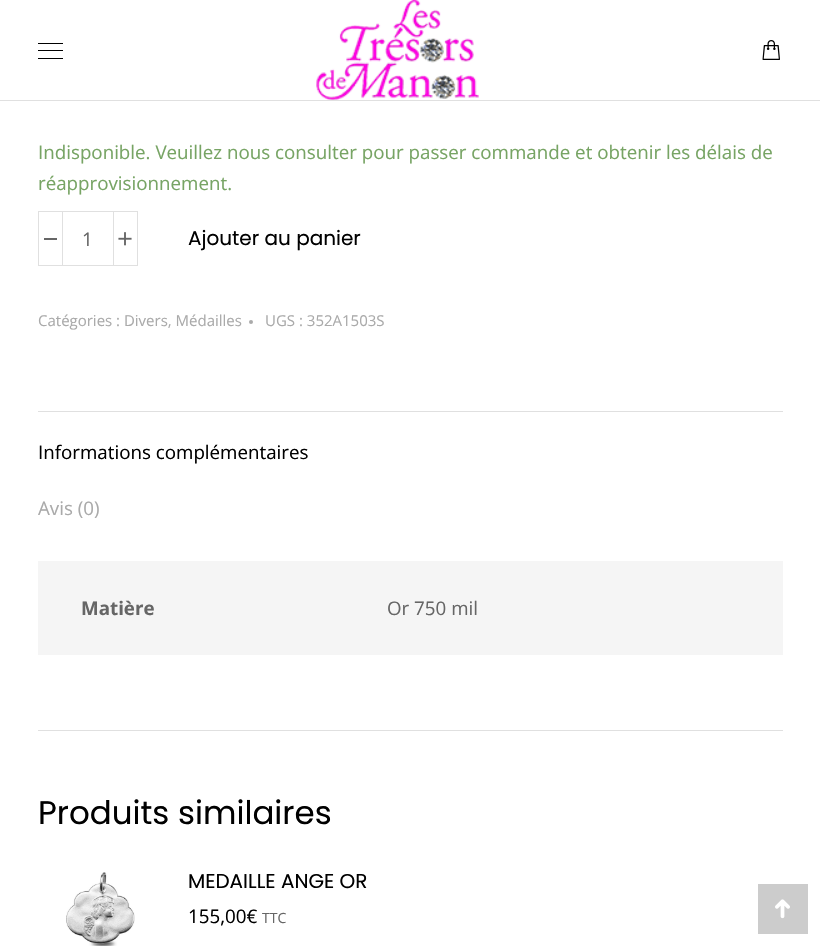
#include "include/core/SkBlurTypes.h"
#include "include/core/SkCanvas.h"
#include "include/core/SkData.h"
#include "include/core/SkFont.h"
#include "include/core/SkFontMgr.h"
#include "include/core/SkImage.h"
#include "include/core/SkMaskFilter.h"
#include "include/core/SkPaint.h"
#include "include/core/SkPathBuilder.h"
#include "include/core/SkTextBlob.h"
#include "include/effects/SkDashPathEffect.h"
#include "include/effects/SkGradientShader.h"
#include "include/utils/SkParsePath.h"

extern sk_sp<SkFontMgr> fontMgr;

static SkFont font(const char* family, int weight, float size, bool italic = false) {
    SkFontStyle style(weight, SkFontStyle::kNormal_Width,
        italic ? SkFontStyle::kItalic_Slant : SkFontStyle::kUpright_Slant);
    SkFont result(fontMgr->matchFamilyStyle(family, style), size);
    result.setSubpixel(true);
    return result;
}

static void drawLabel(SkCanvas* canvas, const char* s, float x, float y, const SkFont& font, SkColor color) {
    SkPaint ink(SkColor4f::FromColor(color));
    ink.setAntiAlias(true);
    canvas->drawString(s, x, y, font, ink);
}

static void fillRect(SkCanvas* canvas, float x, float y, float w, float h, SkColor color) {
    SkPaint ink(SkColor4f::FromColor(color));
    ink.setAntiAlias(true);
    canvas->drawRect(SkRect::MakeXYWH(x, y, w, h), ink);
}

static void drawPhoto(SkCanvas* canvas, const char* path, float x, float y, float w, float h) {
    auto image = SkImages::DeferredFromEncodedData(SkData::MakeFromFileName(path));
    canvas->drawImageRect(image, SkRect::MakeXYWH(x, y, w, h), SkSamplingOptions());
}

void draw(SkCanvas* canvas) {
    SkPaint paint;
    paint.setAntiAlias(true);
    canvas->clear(0xFFFFFFFF);
    fillRect(canvas, 0, 100, 820, 1, 0xFFE0E0E0);
    fillRect(canvas, 38, 43, 25, 1, 0xFF000000);
    fillRect(canvas, 38, 50, 25, 1, 0xFF000000);
    fillRect(canvas, 38, 58, 25, 1, 0xFF000000);
    drawPhoto(canvas, "assets/img1.png", 316, 0, 163, 100);
    drawPhoto(canvas, "assets/img2.png", 762, 40, 18, 20);
    SkFont font1 = font("Open Sans", 400, 18.75f);
    drawLabel(canvas, "Indisponible. Veuillez nous consulter pour passer commande et obtenir les délais de", 38, 159, font1, 0xFF77A464);
    drawLabel(canvas, "réapprovisionnement.", 38, 190, font1, 0xFF77A464);
    paint.setStroke(true);
    paint.setStrokeWidth(1);
    paint.setColor(0xFFE0E0E0);
    canvas->drawRect(SkRect::MakeXYWH(38.5f, 211.5f, 24, 54), paint);
    fillRect(canvas, 44, 238, 13, 2, 0xFF666666);
    fillRect(canvas, 63, 211, 50, 1, 0xFFE0E0E0);
    fillRect(canvas, 63, 265, 50, 1, 0xFFE0E0E0);
    drawLabel(canvas, "1", 82, 246, font1, 0xFF666666);
    canvas->drawRect(SkRect::MakeXYWH(113.5f, 211.5f, 24, 54), paint);
    drawPhoto(canvas, "assets/img3.png", 118, 232, 14, 14);
    SkFont font2 = font("Poppins", 400, 20);
    drawLabel(canvas, "Ajouter au panier", 188, 245, font2, 0xFF000000);
    SkFont font3 = font("Open Sans", 400, 15);
    drawLabel(canvas, "Catégories : Divers, Médailles", 38, 326, font3, 0xFFAAAAAA);
    paint.setStroke(false);
    paint.setColor(0xFFAAAAAA);
    canvas->drawCircle(251, 322, 2, paint);
    drawLabel(canvas, "UGS : 352A1503S", 265, 326, font3, 0xFFAAAAAA);
    fillRect(canvas, 38, 411, 745, 1, 0xFFE0E0E0);
    drawLabel(canvas, "Informations complémentaires", 38, 459, font1, 0xFF000000);
    drawLabel(canvas, "Avis (0)", 38, 515, font1, 0xFFAAAAAA);
    fillRect(canvas, 38, 561, 745, 94, 0xFFF5F5F5);
    SkFont font4 = font("Open Sans", 700, 18.75f);
    drawLabel(canvas, "Matière", 81, 615, font4, 0xFF666666);
    drawLabel(canvas, "Or 750 mil", 387, 615, font1, 0xFF666666);
    fillRect(canvas, 38, 730, 745, 1, 0xFFE0E0E0);
    SkFont font5 = font("Poppins", 400, 32.5f);
    drawLabel(canvas, "Produits similaires", 38, 824, font5, 0xFF000000);
    drawPhoto(canvas, "assets/img4.png", 66, 872, 69, 74);
    drawLabel(canvas, "MEDAILLE ANGE OR", 188, 888, font2, 0xFF000000);
    drawLabel(canvas, "155,00€", 188, 923, font1, 0xFF000000);
    SkFont font6 = font("Open Sans", 400, 14);
    drawLabel(canvas, "TTC", 262, 923, font6, 0xFF666666);
    fillRect(canvas, 758, 884, 50, 50, 0xFFCCCCCC);
    drawPhoto(canvas, "assets/img5.png", 775, 899, 15, 20);
}
